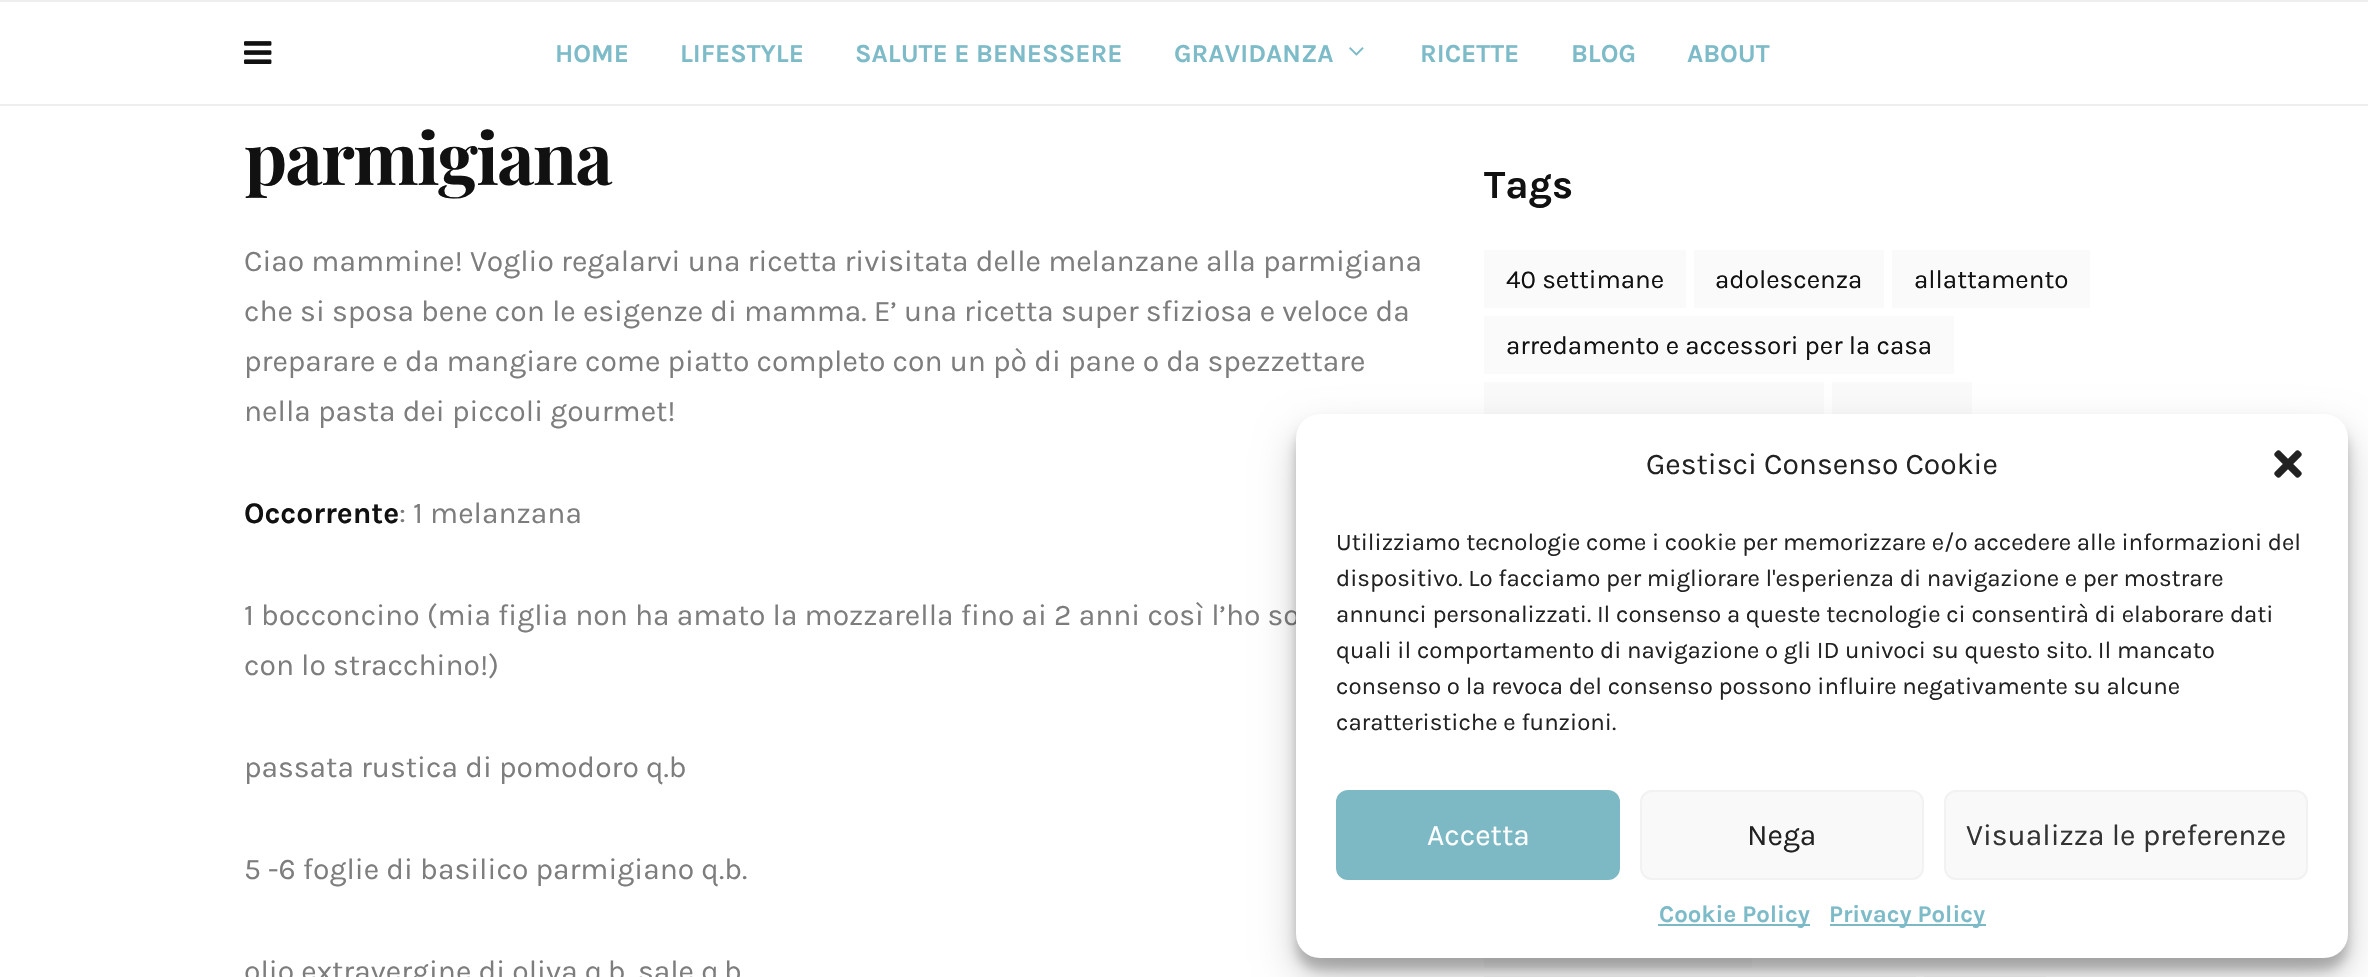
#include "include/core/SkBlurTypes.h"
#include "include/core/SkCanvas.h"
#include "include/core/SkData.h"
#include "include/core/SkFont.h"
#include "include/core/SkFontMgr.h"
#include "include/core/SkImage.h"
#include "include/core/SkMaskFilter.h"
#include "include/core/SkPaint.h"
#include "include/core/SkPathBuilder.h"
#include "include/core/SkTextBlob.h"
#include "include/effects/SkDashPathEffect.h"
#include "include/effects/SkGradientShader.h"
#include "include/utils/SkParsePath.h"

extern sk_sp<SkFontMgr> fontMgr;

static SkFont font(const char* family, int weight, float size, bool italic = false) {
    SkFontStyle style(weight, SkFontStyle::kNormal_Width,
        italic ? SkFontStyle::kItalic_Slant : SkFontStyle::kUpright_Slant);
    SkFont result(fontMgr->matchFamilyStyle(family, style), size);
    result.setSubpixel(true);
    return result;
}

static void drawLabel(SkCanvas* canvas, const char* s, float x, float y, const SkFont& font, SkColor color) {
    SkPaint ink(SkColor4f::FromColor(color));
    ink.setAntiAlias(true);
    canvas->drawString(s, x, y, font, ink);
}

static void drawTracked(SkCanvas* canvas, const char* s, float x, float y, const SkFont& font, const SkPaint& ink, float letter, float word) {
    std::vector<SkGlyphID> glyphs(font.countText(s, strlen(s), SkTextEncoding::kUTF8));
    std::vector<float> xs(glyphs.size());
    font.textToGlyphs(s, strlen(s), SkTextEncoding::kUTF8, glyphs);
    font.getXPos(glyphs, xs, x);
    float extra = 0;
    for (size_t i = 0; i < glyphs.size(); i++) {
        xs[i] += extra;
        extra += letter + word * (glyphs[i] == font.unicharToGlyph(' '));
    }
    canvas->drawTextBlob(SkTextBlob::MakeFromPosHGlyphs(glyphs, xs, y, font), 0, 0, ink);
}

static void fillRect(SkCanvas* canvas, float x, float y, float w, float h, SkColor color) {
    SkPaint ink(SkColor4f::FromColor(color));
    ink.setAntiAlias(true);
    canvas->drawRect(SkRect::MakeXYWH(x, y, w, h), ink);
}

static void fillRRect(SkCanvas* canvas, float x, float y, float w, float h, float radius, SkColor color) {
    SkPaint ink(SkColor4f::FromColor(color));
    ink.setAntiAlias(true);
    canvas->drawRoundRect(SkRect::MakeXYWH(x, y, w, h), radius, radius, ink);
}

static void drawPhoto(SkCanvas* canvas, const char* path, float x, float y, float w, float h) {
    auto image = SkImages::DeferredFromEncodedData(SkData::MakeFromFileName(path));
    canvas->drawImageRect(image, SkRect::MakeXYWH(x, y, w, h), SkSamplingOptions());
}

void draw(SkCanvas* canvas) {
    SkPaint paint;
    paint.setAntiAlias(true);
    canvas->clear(0xFFFFFFFF);
    fillRect(canvas, 0, 0, 2368, 2, 0xFFEEEEEE);
    fillRect(canvas, 0, 104, 2368, 2, 0xFFEEEEEE);
    drawPhoto(canvas, "assets/img1.png", 244, 41, 28, 23);
    SkFont font1 = font("Karla", 700, 26);
    drawLabel(canvas, "HOME", 555, 62, font1, 0xFF7DBBC9);
    drawLabel(canvas, "LIFESTYLE", 680, 62, font1, 0xFF7DBBC9);
    drawLabel(canvas, "SALUTE E BENESSERE", 855, 62, font1, 0xFF7DBBC9);
    drawLabel(canvas, "GRAVIDANZA", 1174, 62, font1, 0xFF7DBBC9);
    drawPhoto(canvas, "assets/img2.png", 1349, 47, 15, 9);
    drawLabel(canvas, "RICETTE", 1420, 62, font1, 0xFF7DBBC9);
    drawLabel(canvas, "BLOG", 1571, 62, font1, 0xFF7DBBC9);
    drawLabel(canvas, "ABOUT", 1687, 62, font1, 0xFF7DBBC9);
    SkFont font2 = font("Playfair Display", 700, 72);
    paint.setColor(0xFF111111);
    drawTracked(canvas, "parmigiana", 244, 185, font2, paint, -1.6f, 0);
    SkFont font3 = font("Karla", 400, 30);
    drawLabel(canvas, "Ciao mammine! Voglio regalarvi una ricetta rivisitata delle melanzane alla parmigiana", 244, 271, font3, 0xFF7D7D7D);
    drawLabel(canvas, "che si sposa bene con le esigenze di mamma. E’ una ricetta super sfiziosa e veloce da", 244, 321, font3, 0xFF7D7D7D);
    drawLabel(canvas, "preparare e da mangiare come piatto completo con un pò di pane o da spezzettare", 244, 371, font3, 0xFF7D7D7D);
    drawLabel(canvas, "nella pasta dei piccoli gourmet!", 244, 421, font3, 0xFF7D7D7D);
    SkFont font4 = font("Karla", 700, 30);
    drawLabel(canvas, "Occorrente", 244, 523, font4, 0xFF111111);
    drawLabel(canvas, ": 1 melanzana", 399, 523, font3, 0xFF7D7D7D);
    drawLabel(canvas, "1 bocconcino (mia figlia non ha amato la mozzarella fino ai 2 anni così l’ho so", 244, 625, font3, 0xFF7D7D7D);
    drawLabel(canvas, "con lo stracchino!)", 244, 675, font3, 0xFF7D7D7D);
    drawLabel(canvas, "passata rustica di pomodoro q.b", 244, 777, font3, 0xFF7D7D7D);
    drawLabel(canvas, "5 -6 foglie di basilico parmigiano q.b.", 244, 879, font3, 0xFF7D7D7D);
    drawLabel(canvas, "olio extravergine di oliva q.b. sale q.b", 244, 981, font3, 0xFF7D7D7D);
    SkFont font5 = font("Karla", 700, 40);
    drawLabel(canvas, "Tags", 1484, 198, font5, 0xFF111111);
    fillRect(canvas, 1484, 250, 202, 58, 0xFFFBFAFA);
    SkFont font6 = font("Karla", 400, 26);
    drawLabel(canvas, "40 settimane", 1506, 288, font6, 0xFF111111);
    fillRect(canvas, 1694, 250, 190, 58, 0xFFFBFAFA);
    drawLabel(canvas, "adolescenza", 1715, 288, font6, 0xFF111111);
    fillRect(canvas, 1892, 250, 198, 58, 0xFFFBFAFA);
    drawLabel(canvas, "allattamento", 1914, 288, font6, 0xFF111111);
    fillRect(canvas, 1484, 316, 470, 58, 0xFFFBFAFA);
    drawLabel(canvas, "arredamento e accessori per la casa", 1506, 354, font6, 0xFF111111);
    fillRect(canvas, 1484, 382, 340, 32, 0xFFFBFAFA);
    fillRect(canvas, 1832, 382, 140, 32, 0xFFFBFAFA);
    fillRect(canvas, 1484, 958, 268, 10, 0xFFFBFAFA);
    fillRect(canvas, 1484, 976, 432, 1, 0xFFFBFAFA);
    fillRect(canvas, 1924, 976, 122, 1, 0xFFFBFAFA);
    paint.setColor(0x3B000000);
    paint.setMaskFilter(SkMaskFilter::MakeBlur(kNormal_SkBlurStyle, 6));
    canvas->drawRoundRect(SkRect::MakeXYWH(1296, 426, 1052, 544), 24, 24, paint);
    paint.setMaskFilter(nullptr);
    paint.setColor(0x30000000);
    paint.setMaskFilter(SkMaskFilter::MakeBlur(kNormal_SkBlurStyle, 20));
    canvas->drawRoundRect(SkRect::MakeXYWH(1296, 434, 1052, 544), 24, 24, paint);
    paint.setMaskFilter(nullptr);
    fillRRect(canvas, 1296, 414, 1052, 544, 24, 0xFFFFFFFF);
    drawLabel(canvas, "Gestisci Consenso Cookie", 1646, 474, font3, 0xFF222222);
    drawPhoto(canvas, "assets/img3.png", 2274, 450, 28, 28);
    SkFont font7 = font("Karla", 400, 24);
    drawLabel(canvas, "Utilizziamo tecnologie come i cookie per memorizzare e/o accedere alle informazioni del", 1336, 550, font7, 0xFF222222);
    drawLabel(canvas, "dispositivo. Lo facciamo per migliorare l'esperienza di navigazione e per mostrare", 1336, 586, font7, 0xFF222222);
    drawLabel(canvas, "annunci personalizzati. Il consenso a queste tecnologie ci consentirà di elaborare dati", 1336, 622, font7, 0xFF222222);
    drawLabel(canvas, "quali il comportamento di navigazione o gli ID univoci su questo sito. Il mancato", 1336, 658, font7, 0xFF222222);
    drawLabel(canvas, "consenso o la revoca del consenso possono influire negativamente su alcune", 1336, 694, font7, 0xFF222222);
    drawLabel(canvas, "caratteristiche e funzioni.", 1336, 730, font7, 0xFF222222);
    paint.setColor(0xFF7DB9C5);
    canvas->drawRoundRect(SkRect::MakeXYWH(1337, 791, 282, 88), 11, 11, paint);
    paint.setStroke(true);
    paint.setStrokeWidth(2);
    canvas->drawRoundRect(SkRect::MakeXYWH(1337, 791, 282, 88), 11, 11, paint);
    drawLabel(canvas, "Accetta", 1427, 845, font3, 0xFFFFFFFF);
    paint.setStroke(false);
    paint.setColor(0xFFF9F9F9);
    canvas->drawRoundRect(SkRect::MakeXYWH(1641, 791, 282, 88), 11, 11, paint);
    paint.setStroke(true);
    paint.setColor(0xFFF2F2F2);
    canvas->drawRoundRect(SkRect::MakeXYWH(1641, 791, 282, 88), 11, 11, paint);
    drawLabel(canvas, "Nega", 1747, 845, font3, 0xFF222222);
    paint.setStroke(false);
    paint.setColor(0xFFF9F9F9);
    canvas->drawRoundRect(SkRect::MakeXYWH(1945, 791, 362, 88), 11, 11, paint);
    paint.setStroke(true);
    paint.setColor(0xFFF2F2F2);
    canvas->drawRoundRect(SkRect::MakeXYWH(1945, 791, 362, 88), 11, 11, paint);
    drawLabel(canvas, "Visualizza le preferenze", 1966, 845, font3, 0xFF333333);
    fillRect(canvas, 1658, 924, 152, 2, 0xFF7DB9C5);
    SkFont font8 = font("Karla", 700, 24);
    drawLabel(canvas, "Cookie Policy", 1659, 922, font8, 0xFF7DBBC9);
    fillRect(canvas, 1830, 924, 156, 2, 0xFF7DB9C5);
    drawLabel(canvas, "Privacy Policy", 1829, 922, font8, 0xFF7DBBC9);
}
